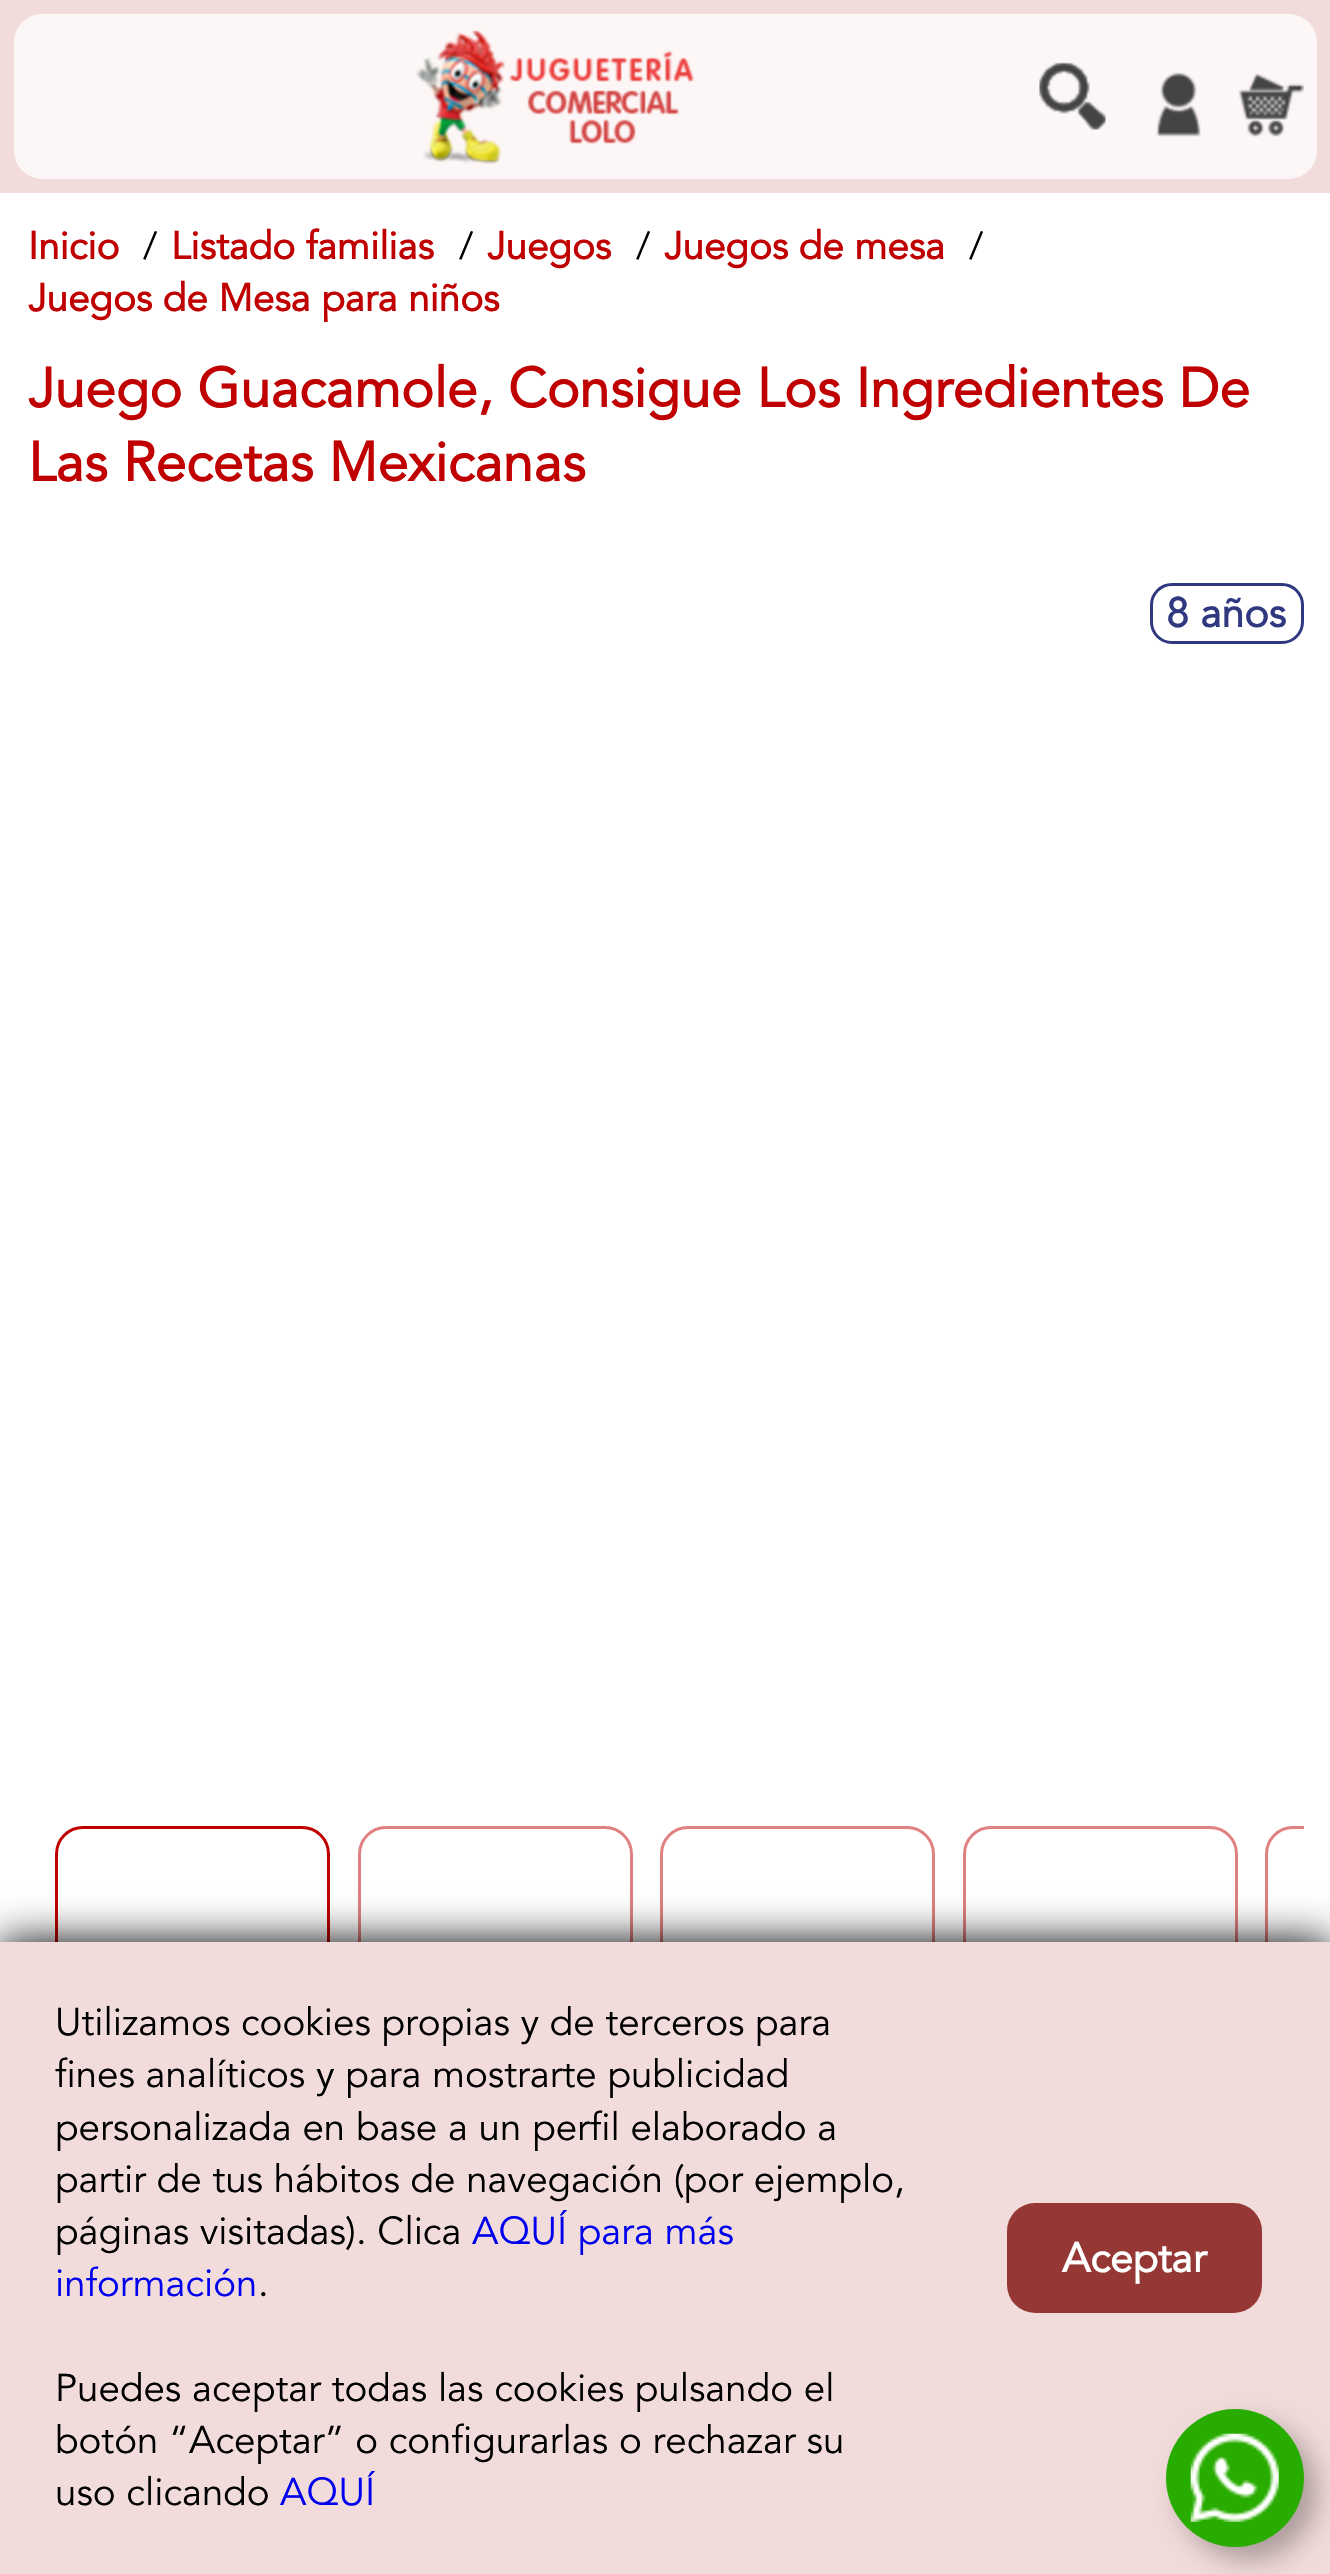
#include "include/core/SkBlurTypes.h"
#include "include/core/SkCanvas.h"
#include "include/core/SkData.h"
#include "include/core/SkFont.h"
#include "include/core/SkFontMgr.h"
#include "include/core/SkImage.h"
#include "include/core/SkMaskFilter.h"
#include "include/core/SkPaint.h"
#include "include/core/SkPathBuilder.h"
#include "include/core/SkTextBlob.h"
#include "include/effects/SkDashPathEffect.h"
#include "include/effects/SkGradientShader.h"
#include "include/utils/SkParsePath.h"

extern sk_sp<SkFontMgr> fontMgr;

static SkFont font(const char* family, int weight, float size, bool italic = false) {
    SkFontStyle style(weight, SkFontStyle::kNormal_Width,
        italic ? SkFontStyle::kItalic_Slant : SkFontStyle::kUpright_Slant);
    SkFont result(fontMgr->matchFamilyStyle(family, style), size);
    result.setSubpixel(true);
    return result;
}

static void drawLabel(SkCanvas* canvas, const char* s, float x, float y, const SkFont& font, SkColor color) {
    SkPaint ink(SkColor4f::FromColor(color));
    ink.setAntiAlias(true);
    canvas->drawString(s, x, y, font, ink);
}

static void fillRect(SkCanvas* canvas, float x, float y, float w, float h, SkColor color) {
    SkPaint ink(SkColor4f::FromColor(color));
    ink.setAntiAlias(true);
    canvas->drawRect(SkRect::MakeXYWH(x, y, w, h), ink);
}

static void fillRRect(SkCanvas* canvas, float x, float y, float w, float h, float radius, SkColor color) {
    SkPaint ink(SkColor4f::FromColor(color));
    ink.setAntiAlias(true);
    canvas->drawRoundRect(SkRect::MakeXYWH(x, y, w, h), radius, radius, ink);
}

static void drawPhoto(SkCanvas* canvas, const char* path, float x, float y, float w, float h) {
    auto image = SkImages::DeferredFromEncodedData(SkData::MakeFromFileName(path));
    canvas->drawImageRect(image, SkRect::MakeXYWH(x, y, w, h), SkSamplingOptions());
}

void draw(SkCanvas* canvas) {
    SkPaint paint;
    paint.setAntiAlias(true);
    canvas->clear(0xFFFFFFFF);
    fillRect(canvas, 0, 0, 1330, 193, 0xFFF2DCDB);
    fillRRect(canvas, 14, 14, 1303, 165, 28, 0xFFFCF6F6);
    drawPhoto(canvas, "assets/img1.png", 415, 30, 279, 134);
    drawPhoto(canvas, "assets/img2.png", 1039, 62, 67, 68);
    drawPhoto(canvas, "assets/img3.png", 1156, 72, 45, 65);
    drawPhoto(canvas, "assets/img4.png", 1238, 73, 66, 64);
    SkFont font1 = font("Avenir", 700, 38.5f);
    drawLabel(canvas, "Inicio", 28, 259, font1, 0xFFC00000);
    SkFont font2 = font("Avenir", 400, 38.5f);
    drawLabel(canvas, "/", 143, 259, font2, 0xFF000000);
    drawLabel(canvas, "Listado familias", 171, 259, font1, 0xFFC00000);
    drawLabel(canvas, "/", 459, 259, font2, 0xFF000000);
    drawLabel(canvas, "Juegos", 487, 259, font1, 0xFFC00000);
    drawLabel(canvas, "/", 636, 259, font2, 0xFF000000);
    drawLabel(canvas, "Juegos de mesa", 664, 259, font1, 0xFFC00000);
    drawLabel(canvas, "/", 969, 259, font2, 0xFF000000);
    drawLabel(canvas, "Juegos de Mesa para niños", 28, 311, font1, 0xFFC00000);
    SkFont font3 = font("Avenir", 700, 55);
    drawLabel(canvas, "Juego Guacamole, Consigue Los Ingredientes De", 28, 407, font3, 0xFFC00000);
    drawLabel(canvas, "Las Recetas Mexicanas", 28, 481, font3, 0xFFC00000);
    paint.setStroke(true);
    paint.setStrokeWidth(3);
    paint.setColor(0xFF303880);
    canvas->drawRoundRect(SkRect::MakeXYWH(1151.5f, 584.5f, 151, 58), 20.5f, 20.5f, paint);
    SkFont font4 = font("Avenir", 700, 41);
    drawLabel(canvas, "8 años", 1166, 627, font4, 0xFF303880);
    paint.setColor(0xFFC00000);
    canvas->drawRoundRect(SkRect::MakeXYWH(56.5f, 1827.5f, 272, 272), 26.5f, 26.5f, paint);
    paint.setColor(0xFFE08080);
    canvas->drawRoundRect(SkRect::MakeXYWH(359.5f, 1827.5f, 272, 272), 26.5f, 26.5f, paint);
    canvas->drawRoundRect(SkRect::MakeXYWH(661.5f, 1827.5f, 272, 272), 26.5f, 26.5f, paint);
    canvas->drawRoundRect(SkRect::MakeXYWH(964.5f, 1827.5f, 272, 272), 26.5f, 26.5f, paint);
    canvas->save();
    canvas->clipRect(SkRect::MakeXYWH(28, 1826, 1276, 303));
    canvas->drawRoundRect(SkRect::MakeXYWH(1266.5f, 1827.5f, 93, 272), 26.5f, 26.5f, paint);
    canvas->restore();
    paint.setStroke(false);
    paint.setColor(0xFF000000);
    paint.setMaskFilter(SkMaskFilter::MakeBlur(kNormal_SkBlurStyle, 20.5f));
    canvas->drawRect(SkRect::MakeXYWH(0, 1942, 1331, 632), paint);
    paint.setMaskFilter(nullptr);
    fillRect(canvas, 0, 1942, 1330, 632, 0xFFF2DCDB);
    drawLabel(canvas, "Utilizamos cookies propias y de terceros para", 55, 2035, font2, 0xFF000000);
    drawLabel(canvas, "fines analíticos y para mostrarte publicidad", 55, 2087, font2, 0xFF000000);
    drawLabel(canvas, "personalizada en base a un perfil elaborado a", 55, 2140, font2, 0xFF000000);
    drawLabel(canvas, "partir de tus hábitos de navegación (por ejemplo,", 55, 2192, font2, 0xFF000000);
    drawLabel(canvas, "páginas visitadas). Clica", 55, 2244, font2, 0xFF000000);
    drawLabel(canvas, "AQUÍ para más", 472, 2244, font2, 0xFF0000EE);
    drawLabel(canvas, "información", 55, 2296, font2, 0xFF0000EE);
    drawLabel(canvas, ".", 258, 2296, font2, 0xFF000000);
    drawLabel(canvas, "Puedes aceptar todas las cookies pulsando el", 55, 2401, font2, 0xFF000000);
    drawLabel(canvas, "botón “Aceptar” o configurarlas o rechazar su", 55, 2453, font2, 0xFF000000);
    drawLabel(canvas, "uso clicando", 55, 2505, font2, 0xFF000000);
    drawLabel(canvas, "AQUÍ", 280, 2505, font2, 0xFF0000EE);
    fillRRect(canvas, 1007, 2203, 255, 110, 28, 0xFF953734);
    drawLabel(canvas, "Aceptar", 1062, 2272, font4, 0xFFFFFFFF);
    paint.setColor(0x4D000000);
    paint.setMaskFilter(SkMaskFilter::MakeBlur(kNormal_SkBlurStyle, 14));
    canvas->drawRoundRect(SkRect::MakeXYWH(1180, 2423, 137, 137), 68.5f, 68.5f, paint);
    paint.setMaskFilter(nullptr);
    paint.setColor(0xFF28AC00);
    canvas->drawCircle(1235, 2478, 69, paint);
    drawPhoto(canvas, "assets/img5.png", 1190, 2433, 89, 89);
}
